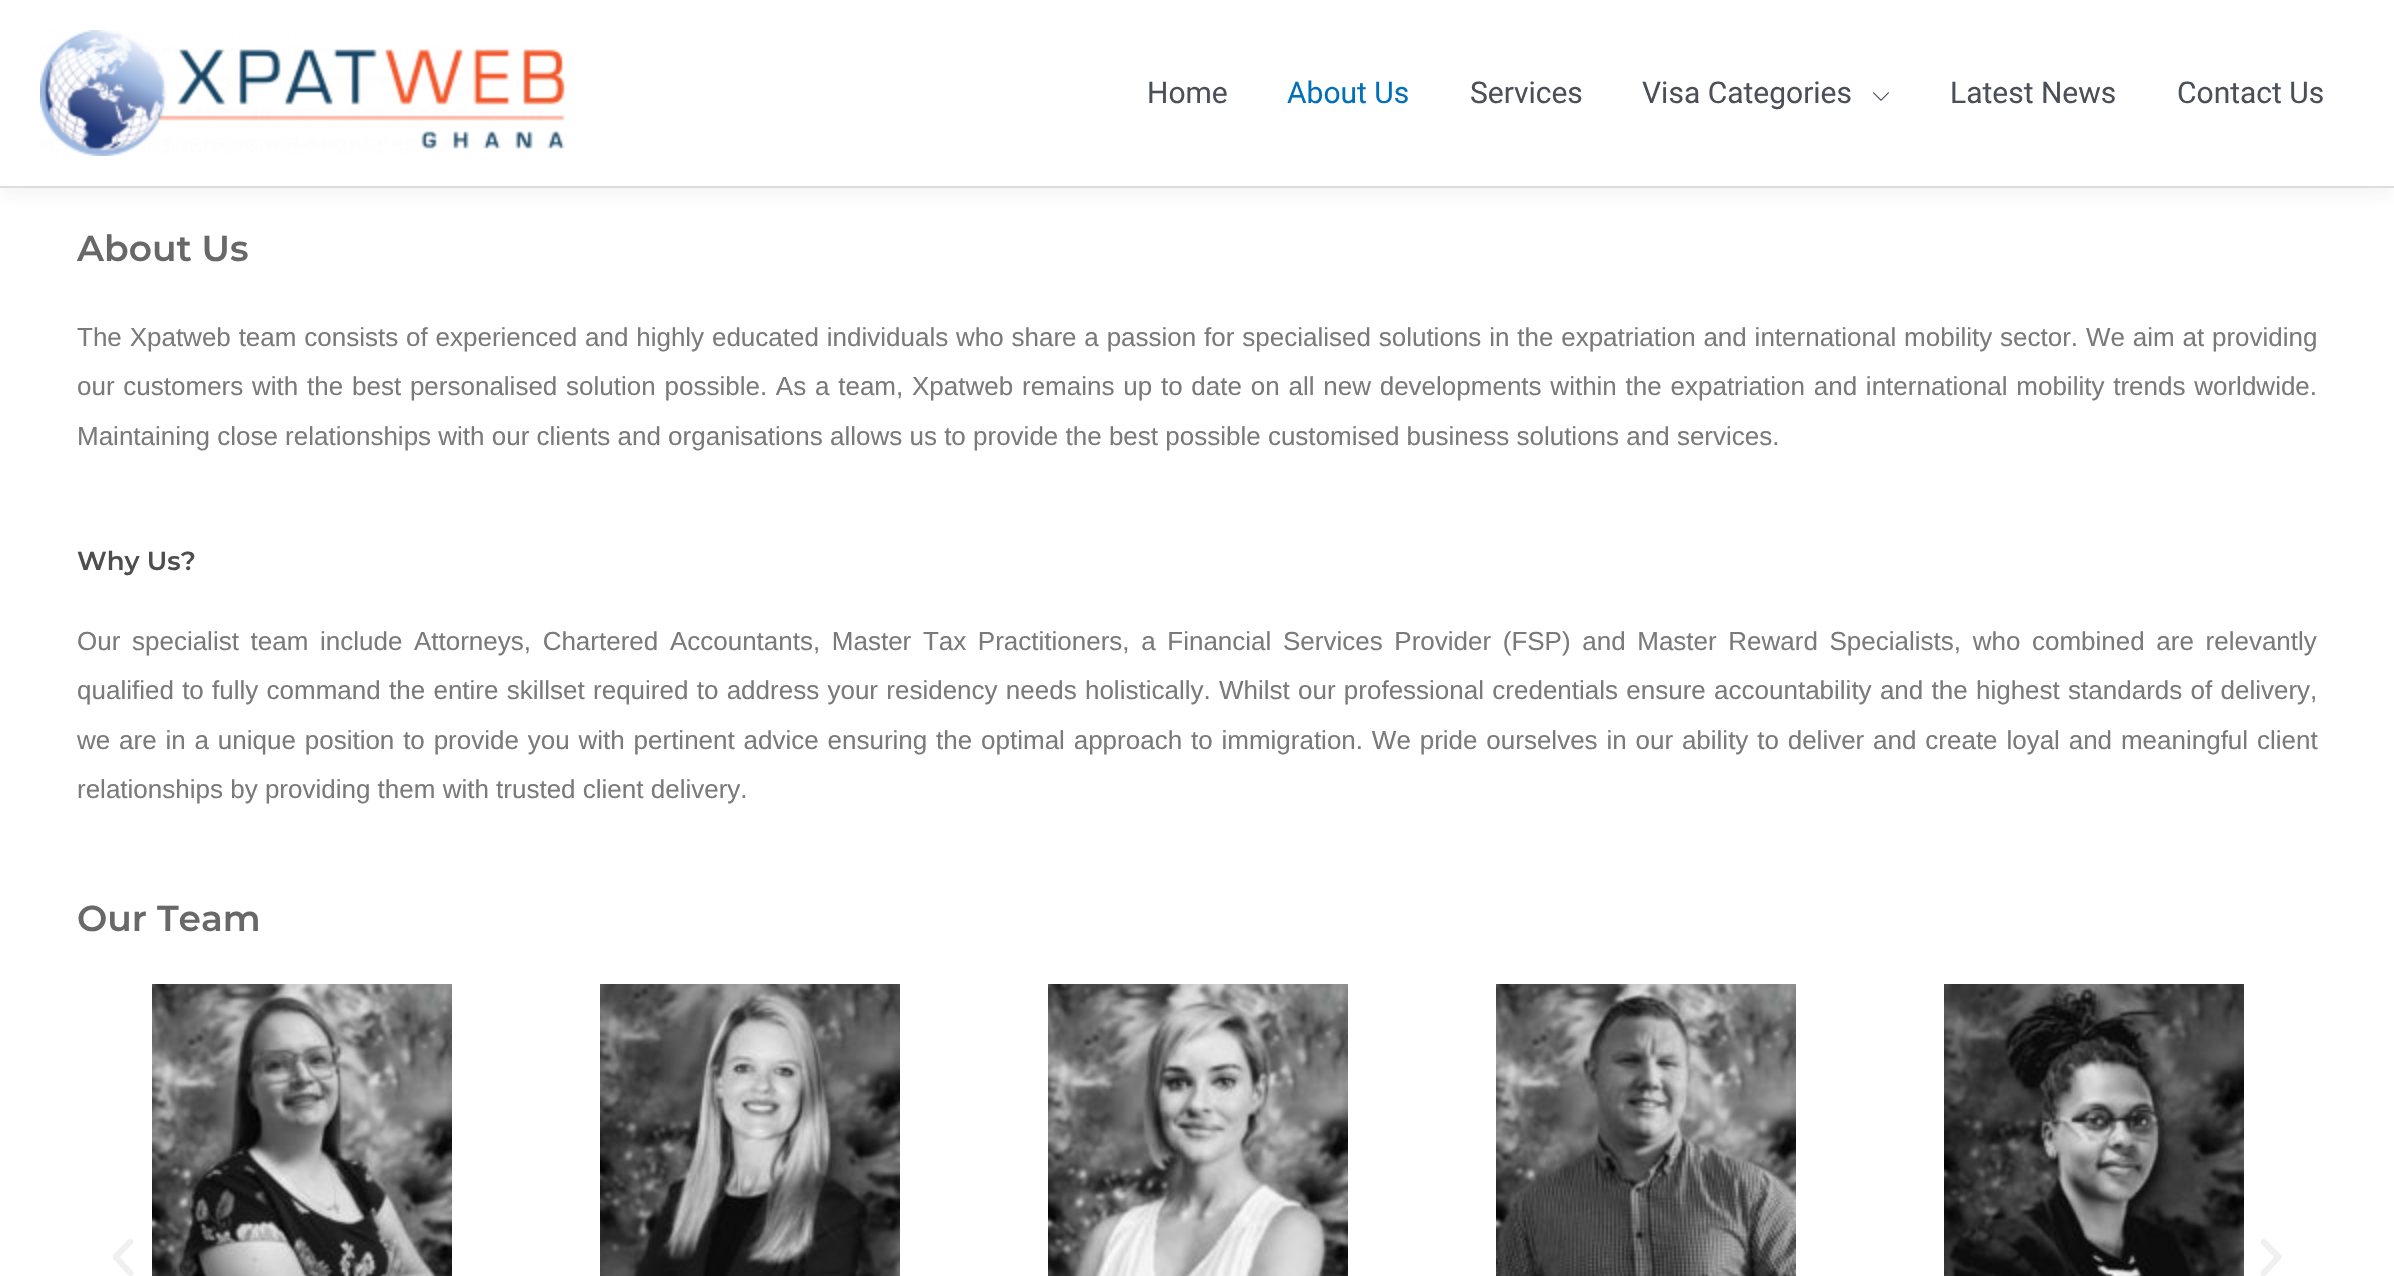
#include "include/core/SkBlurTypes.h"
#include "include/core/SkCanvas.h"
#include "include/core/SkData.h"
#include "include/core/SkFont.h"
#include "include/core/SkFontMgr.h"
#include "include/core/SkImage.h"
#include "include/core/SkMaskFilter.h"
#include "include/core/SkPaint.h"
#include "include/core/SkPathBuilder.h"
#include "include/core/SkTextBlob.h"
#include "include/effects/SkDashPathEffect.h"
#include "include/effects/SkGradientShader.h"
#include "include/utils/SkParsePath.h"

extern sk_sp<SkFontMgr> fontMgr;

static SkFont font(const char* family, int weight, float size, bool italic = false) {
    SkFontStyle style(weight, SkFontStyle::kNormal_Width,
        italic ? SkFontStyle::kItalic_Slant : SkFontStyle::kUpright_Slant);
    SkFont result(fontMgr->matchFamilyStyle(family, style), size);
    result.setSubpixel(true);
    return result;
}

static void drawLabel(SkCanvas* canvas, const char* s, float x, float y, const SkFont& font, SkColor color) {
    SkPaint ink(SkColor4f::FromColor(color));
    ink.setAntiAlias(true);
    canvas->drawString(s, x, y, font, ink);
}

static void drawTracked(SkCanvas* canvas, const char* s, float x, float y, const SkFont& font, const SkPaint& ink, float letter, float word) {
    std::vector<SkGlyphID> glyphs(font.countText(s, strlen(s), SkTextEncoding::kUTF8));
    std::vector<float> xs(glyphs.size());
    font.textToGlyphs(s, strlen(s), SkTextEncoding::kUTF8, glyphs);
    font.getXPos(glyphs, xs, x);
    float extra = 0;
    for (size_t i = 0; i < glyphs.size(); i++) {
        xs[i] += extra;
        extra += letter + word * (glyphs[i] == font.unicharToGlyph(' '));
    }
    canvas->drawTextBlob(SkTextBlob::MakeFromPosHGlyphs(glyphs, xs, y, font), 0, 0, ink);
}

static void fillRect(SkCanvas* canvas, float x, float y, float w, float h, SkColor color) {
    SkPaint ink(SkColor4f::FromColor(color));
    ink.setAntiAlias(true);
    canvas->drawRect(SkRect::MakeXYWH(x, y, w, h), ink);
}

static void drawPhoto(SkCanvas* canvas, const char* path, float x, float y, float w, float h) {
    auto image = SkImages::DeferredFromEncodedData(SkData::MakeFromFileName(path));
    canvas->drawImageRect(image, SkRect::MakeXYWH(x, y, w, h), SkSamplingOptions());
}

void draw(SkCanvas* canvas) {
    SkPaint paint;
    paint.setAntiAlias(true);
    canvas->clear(0xFFFFFFFF);
    paint.setColor(0x12243242);
    paint.setMaskFilter(SkMaskFilter::MakeBlur(kNormal_SkBlurStyle, 10));
    canvas->drawRect(SkRect::MakeXYWH(0, 4, 2394, 188), paint);
    paint.setMaskFilter(nullptr);
    fillRect(canvas, 0, 0, 2394, 186, 0xFFFFFFFF);
    fillRect(canvas, 0, 186, 2394, 2, 0xFFDDDDDD);
    drawPhoto(canvas, "assets/img1.png", 40, 30, 525, 126);
    SkFont font1 = font("Roboto", 400, 30);
    drawLabel(canvas, "Home", 1147, 103, font1, 0xFF4B4F58);
    drawLabel(canvas, "About Us", 1287, 103, font1, 0xFF0170B9);
    drawLabel(canvas, "Services", 1470, 103, font1, 0xFF4B4F58);
    drawLabel(canvas, "Visa Categories", 1642, 103, font1, 0xFF4B4F58);
    drawPhoto(canvas, "assets/img2.png", 1872, 92, 17, 9);
    drawLabel(canvas, "Latest News", 1950, 103, font1, 0xFF4B4F58);
    drawLabel(canvas, "Contact Us", 2177, 103, font1, 0xFF4B4F58);
    SkFont font2 = font("Montserrat", 600, 36);
    drawLabel(canvas, "About Us", 77, 261, font2, 0xFF696868);
    SkFont font3 = font("Liberation Sans", 400, 26);
    paint.setColor(0xFF7A7A7A);
    drawTracked(canvas, "The Xpatweb team consists of experienced and highly educated individuals who share a passion for specialised solutions in the expatriation and international mobility sector. We aim at providing", 77, 346, font3, paint, 0, 0.6f);
    drawTracked(canvas, "our customers with the best personalised solution possible. As a team, Xpatweb remains up to date on all new developments within the expatriation and international mobility trends worldwide.", 77, 395, font3, paint, 0, 1.55f);
    drawLabel(canvas, "Maintaining close relationships with our clients and organisations allows us to provide the best possible customised business solutions and services.", 77, 445, font3, 0xFF7A7A7A);
    SkFont font4 = font("Montserrat", 600, 26);
    drawLabel(canvas, "Why Us?", 77, 570, font4, 0xFF4F4E4E);
    drawTracked(canvas, "Our specialist team include Attorneys, Chartered Accountants, Master Tax Practitioners, a Financial Services Provider (FSP) and Master Reward Specialists, who combined are relevantly", 77, 650, font3, paint, 0, 4.4f);
    drawTracked(canvas, "qualified to fully command the entire skillset required to address your residency needs holistically. Whilst our professional credentials ensure accountability and the highest standards of delivery,", 77, 699, font3, paint, 0, 1.05f);
    drawTracked(canvas, "we are in a unique position to provide you with pertinent advice ensuring the optimal approach to immigration. We pride ourselves in our ability to deliver and create loyal and meaningful client", 77, 749, font3, paint, 0, 1.6f);
    drawLabel(canvas, "relationships by providing them with trusted client delivery.", 77, 798, font3, 0xFF7A7A7A);
    drawLabel(canvas, "Our Team", 77, 931, font2, 0xFF696868);
    drawPhoto(canvas, "assets/img3.png", 112, 1239, 22, 37);
    drawPhoto(canvas, "assets/img4.png", 152, 984, 300, 292);
    drawPhoto(canvas, "assets/img5.png", 600, 984, 300, 292);
    drawPhoto(canvas, "assets/img6.png", 1048, 984, 300, 292);
    drawPhoto(canvas, "assets/img7.png", 1496, 984, 300, 292);
    drawPhoto(canvas, "assets/img8.png", 1944, 984, 300, 292);
    drawPhoto(canvas, "assets/img9.png", 2260, 1239, 22, 37);
}
